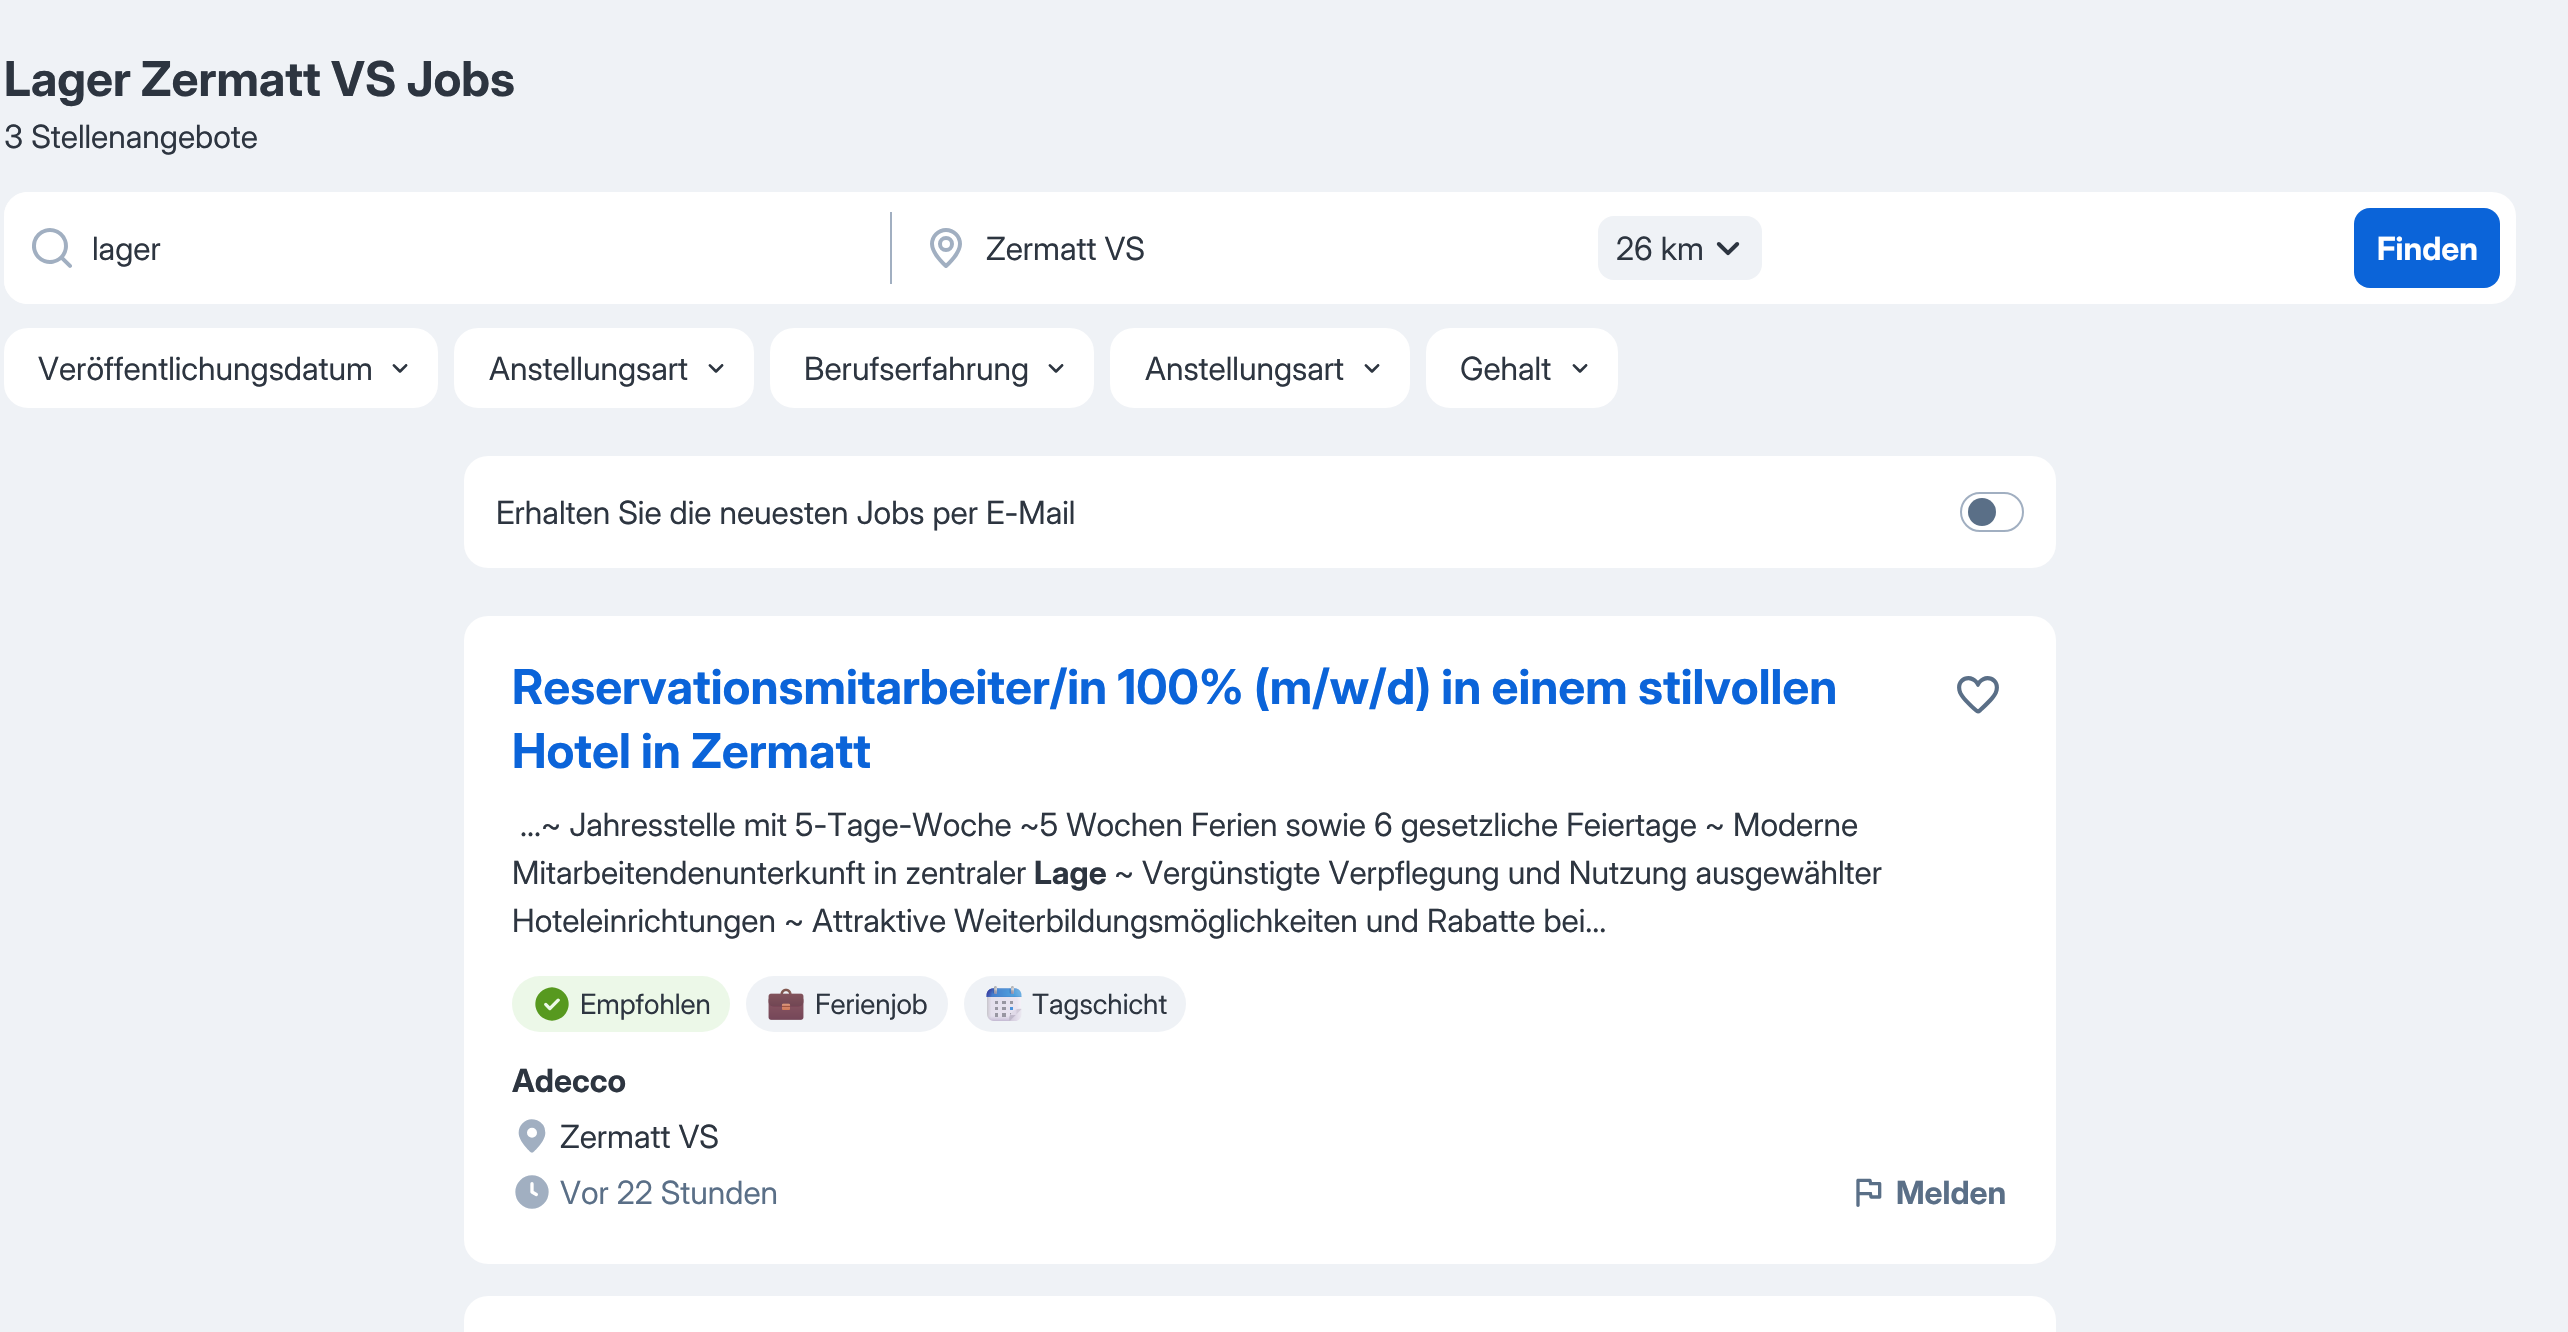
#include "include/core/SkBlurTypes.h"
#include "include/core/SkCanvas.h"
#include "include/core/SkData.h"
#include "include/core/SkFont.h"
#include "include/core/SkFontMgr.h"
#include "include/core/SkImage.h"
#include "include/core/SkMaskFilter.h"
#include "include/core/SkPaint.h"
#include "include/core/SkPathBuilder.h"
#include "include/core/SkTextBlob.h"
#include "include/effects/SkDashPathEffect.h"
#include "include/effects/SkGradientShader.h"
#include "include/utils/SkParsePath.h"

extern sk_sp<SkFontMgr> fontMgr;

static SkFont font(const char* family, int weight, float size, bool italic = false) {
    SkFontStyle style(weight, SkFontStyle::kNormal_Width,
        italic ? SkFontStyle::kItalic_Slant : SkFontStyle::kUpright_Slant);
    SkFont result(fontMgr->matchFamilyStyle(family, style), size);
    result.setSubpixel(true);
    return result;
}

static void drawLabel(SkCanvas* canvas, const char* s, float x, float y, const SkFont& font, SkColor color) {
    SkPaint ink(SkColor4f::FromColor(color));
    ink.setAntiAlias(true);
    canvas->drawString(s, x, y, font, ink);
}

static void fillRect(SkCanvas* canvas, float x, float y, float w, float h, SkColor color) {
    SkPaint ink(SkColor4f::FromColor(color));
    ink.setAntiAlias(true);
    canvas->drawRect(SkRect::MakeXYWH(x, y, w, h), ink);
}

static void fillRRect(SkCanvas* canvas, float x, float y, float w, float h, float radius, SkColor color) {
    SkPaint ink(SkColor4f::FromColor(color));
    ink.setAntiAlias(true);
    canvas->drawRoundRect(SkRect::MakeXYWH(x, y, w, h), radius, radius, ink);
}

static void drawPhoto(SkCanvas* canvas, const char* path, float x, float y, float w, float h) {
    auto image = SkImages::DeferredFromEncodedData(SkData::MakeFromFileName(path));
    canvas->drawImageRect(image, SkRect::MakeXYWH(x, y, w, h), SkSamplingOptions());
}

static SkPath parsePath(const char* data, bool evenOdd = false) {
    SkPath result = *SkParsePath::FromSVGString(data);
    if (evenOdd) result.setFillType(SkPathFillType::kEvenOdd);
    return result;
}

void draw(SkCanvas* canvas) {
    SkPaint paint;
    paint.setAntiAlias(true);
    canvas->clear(0xFFEFF2F6);
    SkFont font1 = font("Inter Display", 700, 48);
    drawLabel(canvas, "Lager Zermatt VS Jobs", 4, 96, font1, 0xFF2D3540);
    SkFont font2 = font("Inter Display", 400, 32);
    drawLabel(canvas, "3 Stellenangebote", 4, 148, font2, 0xFF2D3540);
    fillRRect(canvas, 4, 192, 2512, 112, 24, 0xFFFFFFFF);
    paint.setColor(0xFFFFFFFF);
    canvas->drawPath(parsePath("M28 192H892V304H28C14.5 304 4 293.5 4 280V216C4 202.5 14.5 192 28 192Z"), paint);
    drawPhoto(canvas, "assets/img1.png", 32, 228, 40, 40);
    drawLabel(canvas, "lager", 92, 260, font2, 0xFF2D3540);
    fillRect(canvas, 890, 212, 2, 72, 0xFFA1AFC1);
    drawPhoto(canvas, "assets/img2.png", 930, 228, 32, 40);
    drawLabel(canvas, "Zermatt VS", 986, 260, font2, 0xFF2D3540);
    fillRRect(canvas, 1598, 216, 164, 64, 16, 0xFFEFF2F6);
    drawLabel(canvas, "26 km", 1616, 260, font2, 0xFF2D3540);
    drawPhoto(canvas, "assets/img3.png", 1716, 242, 24, 14);
    fillRRect(canvas, 2354, 208, 146, 80, 16, 0xFF0B64D9);
    SkFont font3 = font("Inter Display", 700, 32);
    drawLabel(canvas, "Finden", 2377, 260, font3, 0xFFFFFFFF);
    canvas->drawRoundRect(SkRect::MakeXYWH(5, 329, 432, 78), 23, 23, paint);
    paint.setStroke(true);
    paint.setStrokeWidth(2);
    canvas->drawRoundRect(SkRect::MakeXYWH(5, 329, 432, 78), 23, 23, paint);
    drawLabel(canvas, "Veröffentlichungsdatum", 38, 380, font2, 0xFF2D3540);
    drawPhoto(canvas, "assets/img4.png", 392, 364, 16, 9);
    paint.setStroke(false);
    canvas->drawRoundRect(SkRect::MakeXYWH(455, 329, 298, 78), 23, 23, paint);
    paint.setStroke(true);
    canvas->drawRoundRect(SkRect::MakeXYWH(455, 329, 298, 78), 23, 23, paint);
    drawLabel(canvas, "Anstellungsart", 489, 380, font2, 0xFF2D3540);
    drawPhoto(canvas, "assets/img4.png", 708, 364, 16, 9);
    paint.setStroke(false);
    canvas->drawRoundRect(SkRect::MakeXYWH(771, 329, 322, 78), 23, 23, paint);
    paint.setStroke(true);
    canvas->drawRoundRect(SkRect::MakeXYWH(771, 329, 322, 78), 23, 23, paint);
    drawLabel(canvas, "Berufserfahrung", 804, 380, font2, 0xFF2D3540);
    drawPhoto(canvas, "assets/img4.png", 1048, 364, 16, 9);
    paint.setStroke(false);
    canvas->drawRoundRect(SkRect::MakeXYWH(1111, 329, 298, 78), 23, 23, paint);
    paint.setStroke(true);
    canvas->drawRoundRect(SkRect::MakeXYWH(1111, 329, 298, 78), 23, 23, paint);
    drawLabel(canvas, "Anstellungsart", 1145, 380, font2, 0xFF2D3540);
    drawPhoto(canvas, "assets/img4.png", 1364, 364, 16, 9);
    paint.setStroke(false);
    canvas->drawRoundRect(SkRect::MakeXYWH(1427, 329, 190, 78), 23, 23, paint);
    paint.setStroke(true);
    canvas->drawRoundRect(SkRect::MakeXYWH(1427, 329, 190, 78), 23, 23, paint);
    drawLabel(canvas, "Gehalt", 1460, 380, font2, 0xFF2D3540);
    drawPhoto(canvas, "assets/img4.png", 1572, 364, 16, 9);
    fillRRect(canvas, 464, 456, 1592, 112, 24, 0xFFFFFFFF);
    drawLabel(canvas, "Erhalten Sie die neuesten Jobs per E-Mail", 496, 524, font2, 0xFF2D3540);
    paint.setColor(0xFFA1AFC1);
    canvas->drawRoundRect(SkRect::MakeXYWH(1961, 493, 62, 38), 19, 19, paint);
    paint.setStroke(false);
    paint.setColor(0xFF5A6F87);
    canvas->drawCircle(1982, 512, 14, paint);
    fillRRect(canvas, 464, 616, 1592, 648, 24, 0xFFFFFFFF);
    drawLabel(canvas, "Reservationsmitarbeiter/in 100% (m/w/d) in einem stilvollen", 512, 704, font1, 0xFF0B64D9);
    drawLabel(canvas, "Hotel in Zermatt", 512, 768, font1, 0xFF0B64D9);
    drawPhoto(canvas, "assets/img5.png", 1957, 676, 42, 38);
    drawLabel(canvas, "...~ Jahresstelle mit 5-Tage-Woche ~5 Wochen Ferien sowie 6 gesetzliche Feiertage ~ Moderne", 520, 836, font2, 0xFF2D3540);
    drawLabel(canvas, "Mitarbeitendenunterkunft in zentraler", 512, 884, font2, 0xFF2D3540);
    drawLabel(canvas, "Lage", 1034, 884, font3, 0xFF2D3540);
    drawLabel(canvas, "~ Vergünstigte Verpflegung und Nutzung ausgewählter", 1114, 884, font2, 0xFF2D3540);
    drawLabel(canvas, "Hoteleinrichtungen ~ Attraktive Weiterbildungsmöglichkeiten und Rabatte bei...", 512, 932, font2, 0xFF2D3540);
    fillRRect(canvas, 512, 976, 218, 56, 28, 0xFFECF8E8);
    drawPhoto(canvas, "assets/img6.png", 535, 987, 34, 34);
    SkFont font4 = font("Inter Display", 400, 28);
    drawLabel(canvas, "Empfohlen", 580, 1014, font4, 0xFF2D3540);
    fillRRect(canvas, 746, 976, 202, 56, 28, 0xFFEFF2F6);
    drawPhoto(canvas, "assets/img7.png", 768, 988, 36, 32);
    drawLabel(canvas, "Ferienjob", 815, 1014, font4, 0xFF2D3540);
    fillRRect(canvas, 964, 976, 222, 56, 28, 0xFFEFF2F6);
    drawPhoto(canvas, "assets/img8.png", 986, 986, 36, 35);
    drawLabel(canvas, "Tagschicht", 1032, 1014, font4, 0xFF2D3540);
    drawLabel(canvas, "Adecco", 512, 1092, font3, 0xFF2D3540);
    drawPhoto(canvas, "assets/img9.png", 518, 1119, 28, 34);
    drawLabel(canvas, "Zermatt VS", 560, 1148, font2, 0xFF2D3540);
    drawPhoto(canvas, "assets/img10.png", 515, 1175, 34, 34);
    drawLabel(canvas, "Vor 22 Stunden", 560, 1204, font2, 0xFF5A6F87);
    drawPhoto(canvas, "assets/img11.png", 1856, 1178, 26, 29);
    drawLabel(canvas, "Melden", 1896, 1204, font3, 0xFF5A6F87);
    fillRRect(canvas, 464, 1296, 1592, 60, 24, 0xFFFFFFFF);
}
